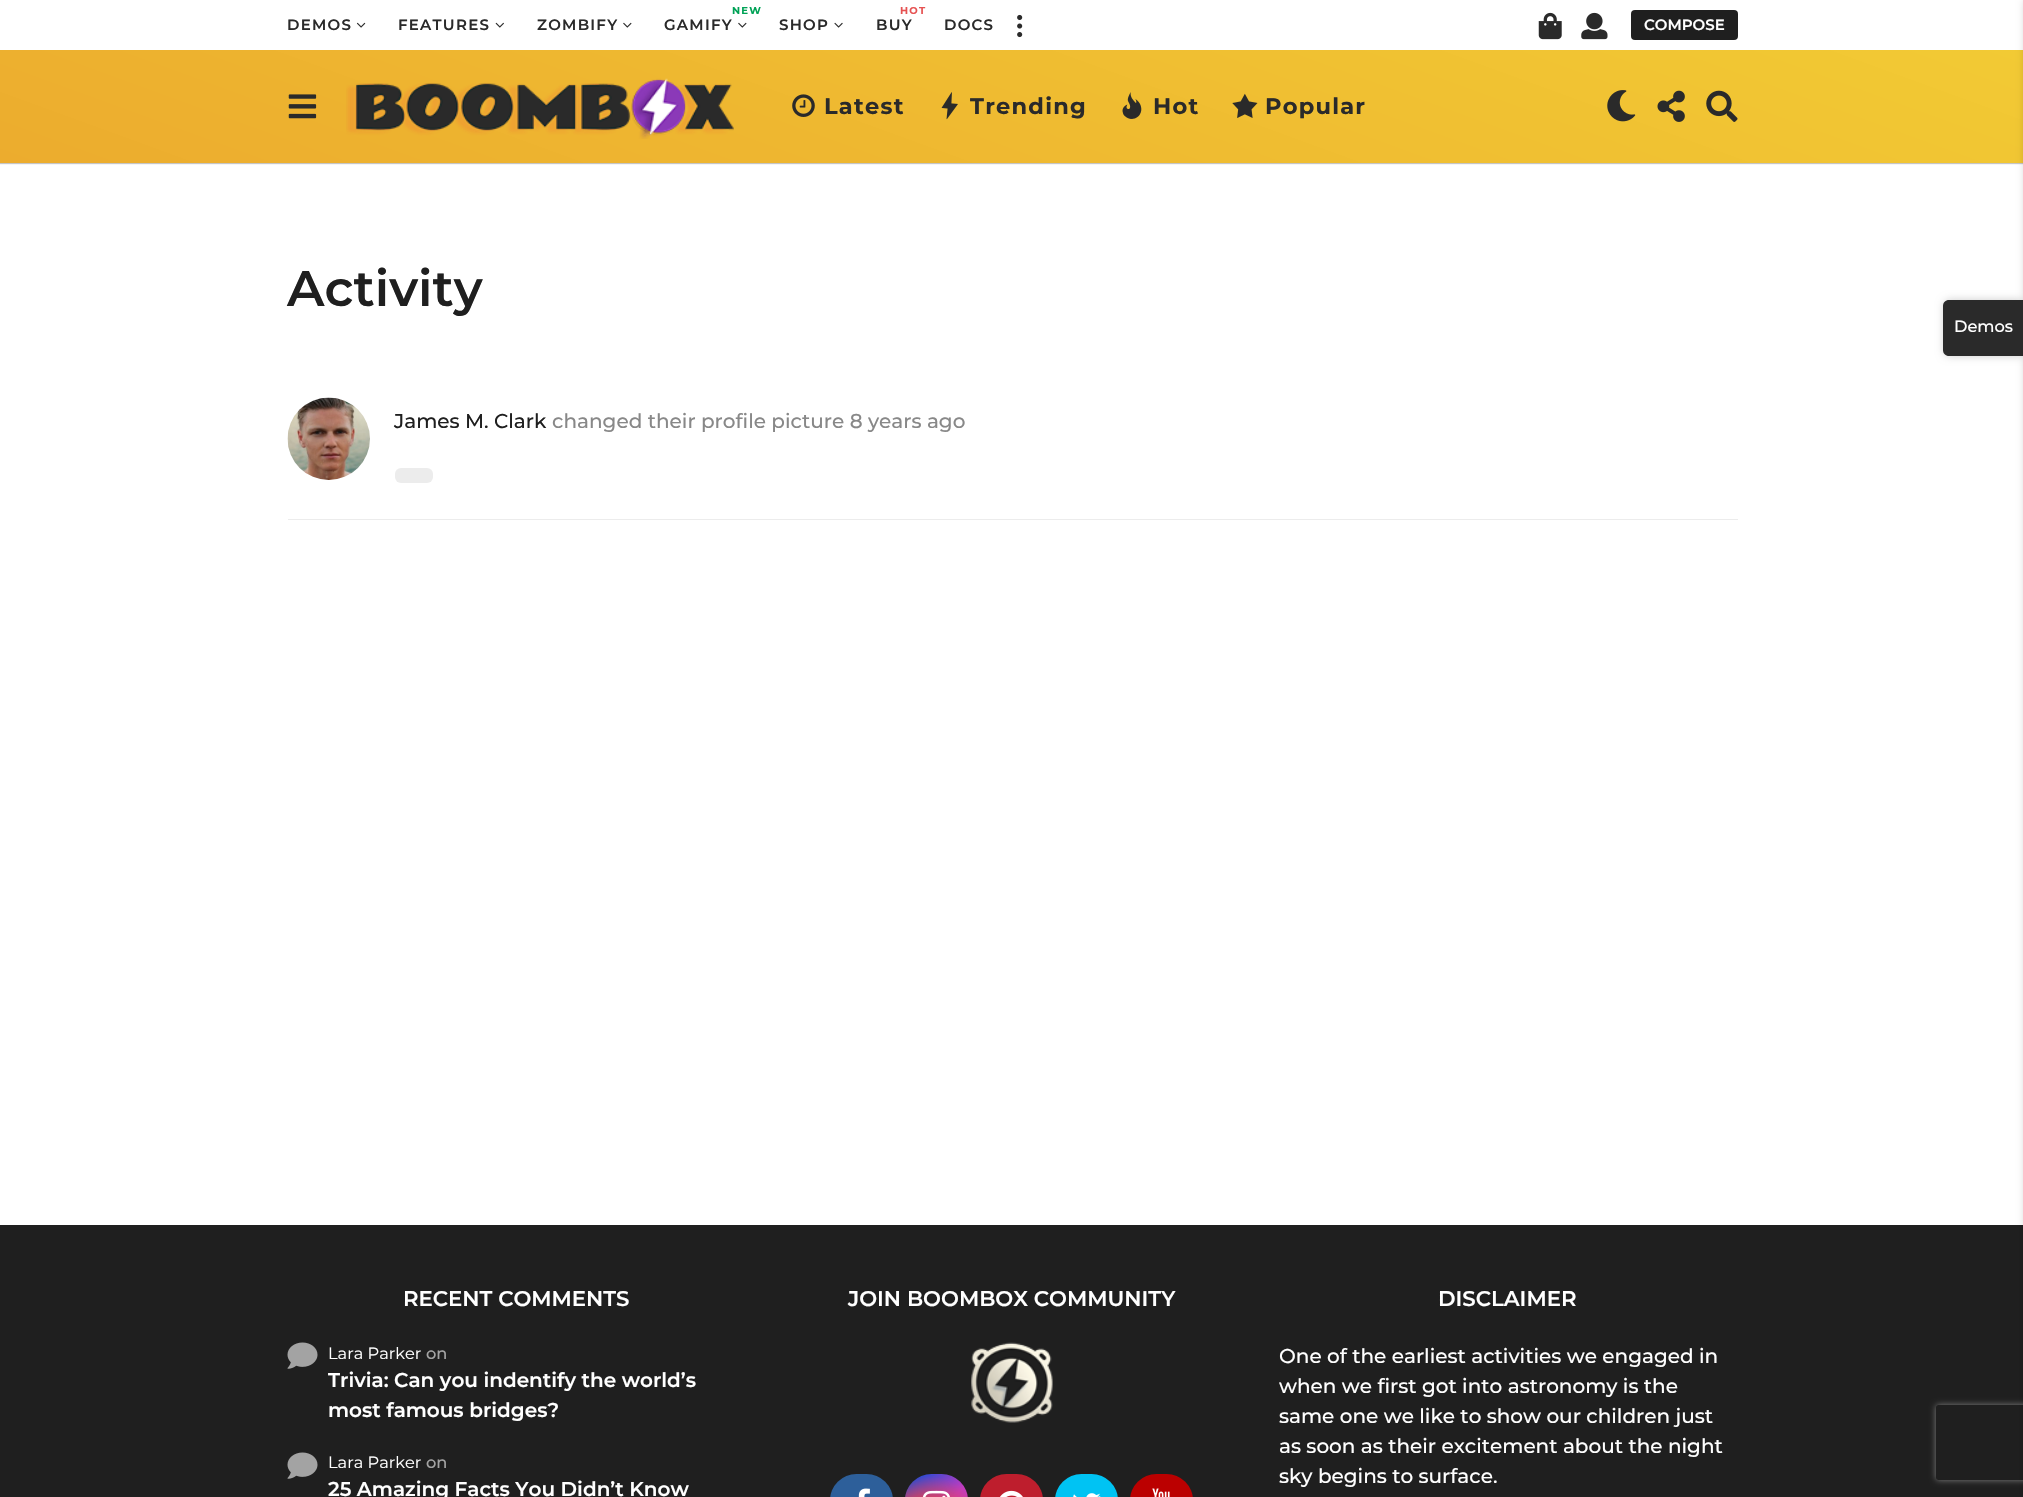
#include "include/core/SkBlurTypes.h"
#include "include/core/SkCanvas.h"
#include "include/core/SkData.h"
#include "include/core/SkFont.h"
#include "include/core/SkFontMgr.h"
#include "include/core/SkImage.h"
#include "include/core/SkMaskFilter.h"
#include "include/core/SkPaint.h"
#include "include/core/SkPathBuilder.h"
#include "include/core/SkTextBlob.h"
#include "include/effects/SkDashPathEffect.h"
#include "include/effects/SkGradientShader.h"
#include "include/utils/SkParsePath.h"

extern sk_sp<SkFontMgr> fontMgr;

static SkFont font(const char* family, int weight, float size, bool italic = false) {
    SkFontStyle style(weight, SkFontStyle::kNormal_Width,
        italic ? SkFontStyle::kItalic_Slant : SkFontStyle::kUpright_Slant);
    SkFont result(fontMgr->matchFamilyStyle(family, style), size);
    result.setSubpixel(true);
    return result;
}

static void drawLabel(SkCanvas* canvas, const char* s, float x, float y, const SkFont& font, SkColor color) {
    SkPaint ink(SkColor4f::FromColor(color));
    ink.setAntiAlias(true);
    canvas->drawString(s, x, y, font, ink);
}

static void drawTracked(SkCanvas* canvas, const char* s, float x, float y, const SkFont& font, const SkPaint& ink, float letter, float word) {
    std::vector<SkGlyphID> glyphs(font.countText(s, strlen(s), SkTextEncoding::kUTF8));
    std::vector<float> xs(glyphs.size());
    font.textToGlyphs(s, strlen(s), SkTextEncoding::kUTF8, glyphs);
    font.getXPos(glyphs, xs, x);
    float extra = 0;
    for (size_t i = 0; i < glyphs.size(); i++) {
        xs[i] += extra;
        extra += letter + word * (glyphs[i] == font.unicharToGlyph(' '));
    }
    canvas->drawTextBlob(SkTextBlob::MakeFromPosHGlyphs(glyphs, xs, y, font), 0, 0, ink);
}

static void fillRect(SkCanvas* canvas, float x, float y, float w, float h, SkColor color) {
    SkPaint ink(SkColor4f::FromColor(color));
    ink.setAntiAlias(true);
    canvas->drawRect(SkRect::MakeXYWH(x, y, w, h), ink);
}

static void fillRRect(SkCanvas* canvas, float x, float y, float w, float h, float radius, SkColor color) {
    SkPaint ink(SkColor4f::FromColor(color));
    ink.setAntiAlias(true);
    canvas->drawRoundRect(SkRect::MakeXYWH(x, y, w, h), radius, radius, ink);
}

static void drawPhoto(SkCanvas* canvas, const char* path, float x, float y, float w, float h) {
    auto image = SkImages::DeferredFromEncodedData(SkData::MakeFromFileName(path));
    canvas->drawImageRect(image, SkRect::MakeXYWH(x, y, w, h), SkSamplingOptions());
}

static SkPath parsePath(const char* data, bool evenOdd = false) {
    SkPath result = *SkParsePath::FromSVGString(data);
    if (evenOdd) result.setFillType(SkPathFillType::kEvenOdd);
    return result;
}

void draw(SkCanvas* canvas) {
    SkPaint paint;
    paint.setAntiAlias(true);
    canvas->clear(0xFFFFFFFF);
    SkFont font1 = font("Montserrat", 600, 15);
    paint.setColor(0xFF2A2A2A);
    drawTracked(canvas, "DEMOS", 287, 30, font1, paint, 1.25f, 0);
    drawPhoto(canvas, "assets/img1.png", 356, 22, 10, 6);
    drawTracked(canvas, "FEATURES", 398, 30, font1, paint, 1.25f, 0);
    drawPhoto(canvas, "assets/img2.png", 495, 22, 9, 6);
    drawTracked(canvas, "ZOMBIFY", 537, 30, font1, paint, 1.25f, 0);
    drawPhoto(canvas, "assets/img3.png", 623, 22, 9, 6);
    SkFont font2 = font("Montserrat", 700, 10);
    paint.setColor(0xFF00A256);
    drawTracked(canvas, "NEW", 732, 14, font2, paint, 1.25f, 0);
    paint.setColor(0xFF2A2A2A);
    drawTracked(canvas, "GAMIFY", 664, 30, font1, paint, 1.25f, 0);
    drawPhoto(canvas, "assets/img3.png", 738, 22, 9, 6);
    drawTracked(canvas, "SHOP", 779, 30, font1, paint, 1.25f, 0);
    drawPhoto(canvas, "assets/img4.png", 834, 22, 9, 6);
    paint.setColor(0xFFE65252);
    drawTracked(canvas, "HOT", 900, 14, font2, paint, 1.25f, 0);
    paint.setColor(0xFF2A2A2A);
    drawTracked(canvas, "BUY", 876, 30, font1, paint, 1.25f, 0);
    drawTracked(canvas, "DOCS", 944, 30, font1, paint, 1.25f, 0);
    drawPhoto(canvas, "assets/img5.png", 1017, 14, 6, 24);
    drawPhoto(canvas, "assets/img6.png", 1538, 12, 24, 28);
    drawPhoto(canvas, "assets/img7.png", 1581, 12, 27, 28);
    fillRRect(canvas, 1631, 10, 107, 30, 4, 0xFF1F1F1F);
    drawLabel(canvas, "COMPOSE", 1644, 30, font1, 0xFFFFFFFF);
    paint.setColor(0x452A2A2A);
    paint.setMaskFilter(SkMaskFilter::MakeBlur(kNormal_SkBlurStyle, 0.5f));
    canvas->drawRect(SkRect::MakeXYWH(-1, 51, 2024, 113), paint);
    paint.setMaskFilter(nullptr);
    {
        const SkColor colors[] = {0xFFECAC2E, 0xFFF2CA34};
        const float stops[] = {0, 1};
        const SkPoint ends[] = {{875, 481}, {1148, -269}};
        paint.setShader(SkGradientShader::MakeLinear(ends, colors, stops, 2, SkTileMode::kClamp));
        paint.setAlpha(255);
    }
    canvas->drawRect(SkRect::MakeXYWH(0, 50, 2023, 113), paint);
    drawPhoto(canvas, "assets/img8.png", 288, 94, 29, 25);
    drawPhoto(canvas, "assets/img9.png", 346, 78, 388, 61);
    drawPhoto(canvas, "assets/img10.png", 792, 94, 23, 23);
    SkFont font3 = font("Montserrat", 700, 22.5f);
    paint.setShader(nullptr);
    paint.setColor(0xFF2A2A2A);
    drawTracked(canvas, "Latest", 824, 114, font3, paint, 1.25f, 0);
    drawPhoto(canvas, "assets/img11.png", 941, 92, 17, 28);
    drawTracked(canvas, "Trending", 970, 114, font3, paint, 1.25f, 0);
    drawPhoto(canvas, "assets/img12.png", 1122, 92, 20, 27);
    drawTracked(canvas, "Hot", 1153, 114, font3, paint, 1.25f, 0);
    drawPhoto(canvas, "assets/img13.png", 1232, 93, 26, 25);
    drawTracked(canvas, "Popular", 1265, 114, font3, paint, 1.25f, 0);
    drawPhoto(canvas, "assets/img14.png", 1607, 90, 29, 32);
    drawPhoto(canvas, "assets/img15.png", 1657, 90, 28, 32);
    drawPhoto(canvas, "assets/img16.png", 1706, 90, 32, 32);
    SkFont font4 = font("Montserrat", 600, 50);
    drawLabel(canvas, "Activity", 287, 306, font4, 0xFF1F1F1F);
    fillRect(canvas, 288, 519, 1450, 1, 0xFFECECEC);
    drawPhoto(canvas, "assets/img17.png", 287, 397, 83, 83);
    SkFont font5 = font("Montserrat", 500, 20);
    drawLabel(canvas, "James M. Clark", 394, 428, font5, 0xFF1F1F1F);
    drawLabel(canvas, "changed their profile picture 8 years ago", 552, 428, font5, 0xFF888888);
    fillRRect(canvas, 395, 468, 38, 15, 6, 0xFFECECEC);
    fillRect(canvas, 0, 1225, 2023, 272, 0xFF1F1F1F);
    SkFont font6 = font("Montserrat", 600, 21.25f);
    drawLabel(canvas, "RECENT COMMENTS", 403, 1306, font6, 0xFFFFFFFF);
    drawPhoto(canvas, "assets/img18.png", 287, 1342, 31, 27);
    SkFont font7 = font("Montserrat", 400, 16.25f);
    drawLabel(canvas, "Lara Parker", 328, 1359, font7, 0xFFFFFFFF);
    SkFont font8 = font("Montserrat", 500, 16.25f);
    drawLabel(canvas, "on", 426, 1359, font8, 0xFFA3A3A3);
    SkFont font9 = font("Montserrat", 600, 20);
    drawLabel(canvas, "Trivia: Can you indentify the world’s", 328, 1387, font9, 0xFFFFFFFF);
    drawLabel(canvas, "most famous bridges?", 328, 1417, font9, 0xFFFFFFFF);
    drawPhoto(canvas, "assets/img18.png", 287, 1452, 31, 27);
    drawLabel(canvas, "Lara Parker", 328, 1468, font7, 0xFFFFFFFF);
    drawLabel(canvas, "on", 426, 1468, font8, 0xFFA3A3A3);
    drawLabel(canvas, "25 Amazing Facts You Didn’t Know", 328, 1496, font9, 0xFFFFFFFF);
    drawLabel(canvas, "JOIN BOOMBOX COMMUNITY", 848, 1306, font6, 0xFFFFFFFF);
    drawPhoto(canvas, "assets/img19.png", 971, 1342, 82, 81);
    fillRRect(canvas, 830, 1474, 63, 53, 30, 0xFF2D5F9A);
    drawPhoto(canvas, "assets/img20.png", 858, 1488, 12, 9);
    {
        const SkColor colors[] = {0xFF234BD7, 0xFFC33CBE};
        const float stops[] = {0.12f, 0.58f};
        const SkPoint ends[] = {{905, 1474}, {968, 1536}};
        paint.setShader(SkGradientShader::MakeLinear(ends, colors, stops, 2, SkTileMode::kClamp));
        paint.setAlpha(255);
    }
    canvas->drawRoundRect(SkRect::MakeXYWH(905, 1474, 63, 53), 30, 30, paint);
    {
        const SkColor colors[] = {0xFFFFE17D, 0xFFFFCD69, 0xFFFA9137, 0xFFEB4141, 0x00EB4141};
        const float stops[] = {0, 0.1f, 0.28f, 0.42f, 0.82f};
        paint.setShader(SkGradientShader::MakeRadial({925, 1540}, 79, colors, stops, 5, SkTileMode::kClamp));
        paint.setAlpha(255);
    }
    canvas->drawRoundRect(SkRect::MakeXYWH(905, 1474, 63, 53), 30, 30, paint);
    drawPhoto(canvas, "assets/img21.png", 922, 1490, 28, 7);
    fillRRect(canvas, 980, 1474, 63, 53, 30, 0xFFBE1E2D);
    drawPhoto(canvas, "assets/img22.png", 1000, 1490, 23, 7);
    fillRRect(canvas, 1055, 1474, 63, 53, 30, 0xFF00C3F3);
    drawPhoto(canvas, "assets/img23.png", 1073, 1493, 28, 4);
    fillRRect(canvas, 1130, 1474, 63, 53, 30, 0xFFBB0000);
    drawPhoto(canvas, "assets/img24.png", 1152, 1488, 18, 9);
    drawLabel(canvas, "DISCLAIMER", 1438, 1306, font6, 0xFFFFFFFF);
    drawLabel(canvas, "One of the earliest activities we engaged in", 1279, 1363, font5, 0xFFFFFFFF);
    drawLabel(canvas, "when we first got into astronomy is the", 1279, 1393, font5, 0xFFFFFFFF);
    drawLabel(canvas, "same one we like to show our children just", 1279, 1423, font5, 0xFFFFFFFF);
    drawLabel(canvas, "as soon as their excitement about the night", 1279, 1453, font5, 0xFFFFFFFF);
    drawLabel(canvas, "sky begins to surface.", 1279, 1483, font5, 0xFFFFFFFF);
    paint.setShader(nullptr);
    paint.setColor(0x33000000);
    paint.setMaskFilter(SkMaskFilter::MakeBlur(kNormal_SkBlurStyle, 4.5f));
    canvas->drawRect(SkRect::MakeXYWH(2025, 0, 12, 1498), paint);
    paint.setMaskFilter(nullptr);
    paint.setMaskFilter(SkMaskFilter::MakeBlur(kNormal_SkBlurStyle, 4.5f));
    canvas->drawRoundRect(SkRect::MakeXYWH(1944, 300, 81, 56), 6, 6, paint);
    paint.setMaskFilter(nullptr);
    paint.setColor(0xFF2A2A2A);
    canvas->drawPath(parsePath("M1949 300H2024V356H1949C1945.5 356 1943 353.5 1943 350V306C1943 302.5 1945.5 300 1949 300Z"), paint);
    drawLabel(canvas, "Demos", 1954, 332, font8, 0xFFFFFFFF);
    canvas->save();
    canvas->clipPath(parsePath("M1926 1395H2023V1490H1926ZM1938.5 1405H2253.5C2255 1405 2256 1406 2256 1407.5V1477.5C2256 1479 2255 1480 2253.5 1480H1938.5C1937 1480 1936 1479 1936 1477.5V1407.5C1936 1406 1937 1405 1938.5 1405Z", true), true);
    paint.setColor(0xFF808080);
    paint.setMaskFilter(SkMaskFilter::MakeBlur(kNormal_SkBlurStyle, 3));
    canvas->drawRoundRect(SkRect::MakeXYWH(1936, 1405, 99, 75), 2.5f, 2.5f, paint);
    paint.setMaskFilter(nullptr);
    canvas->restore();
}
